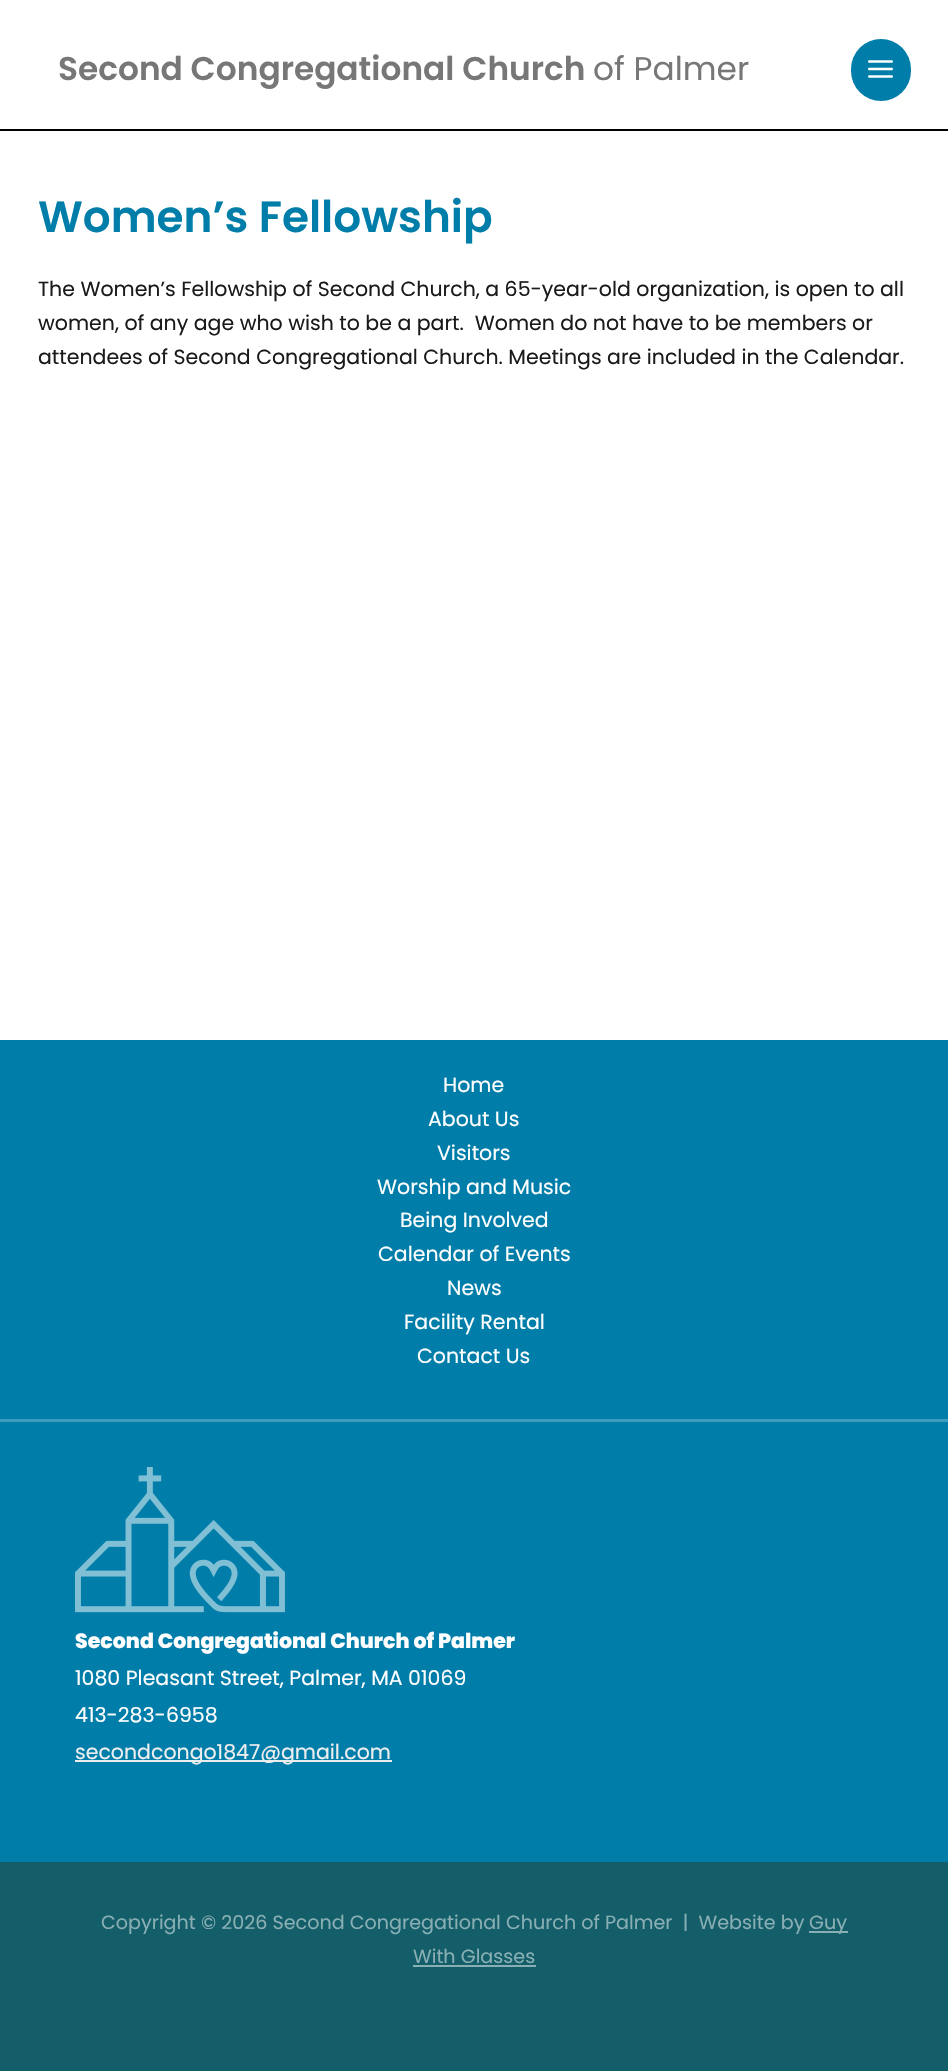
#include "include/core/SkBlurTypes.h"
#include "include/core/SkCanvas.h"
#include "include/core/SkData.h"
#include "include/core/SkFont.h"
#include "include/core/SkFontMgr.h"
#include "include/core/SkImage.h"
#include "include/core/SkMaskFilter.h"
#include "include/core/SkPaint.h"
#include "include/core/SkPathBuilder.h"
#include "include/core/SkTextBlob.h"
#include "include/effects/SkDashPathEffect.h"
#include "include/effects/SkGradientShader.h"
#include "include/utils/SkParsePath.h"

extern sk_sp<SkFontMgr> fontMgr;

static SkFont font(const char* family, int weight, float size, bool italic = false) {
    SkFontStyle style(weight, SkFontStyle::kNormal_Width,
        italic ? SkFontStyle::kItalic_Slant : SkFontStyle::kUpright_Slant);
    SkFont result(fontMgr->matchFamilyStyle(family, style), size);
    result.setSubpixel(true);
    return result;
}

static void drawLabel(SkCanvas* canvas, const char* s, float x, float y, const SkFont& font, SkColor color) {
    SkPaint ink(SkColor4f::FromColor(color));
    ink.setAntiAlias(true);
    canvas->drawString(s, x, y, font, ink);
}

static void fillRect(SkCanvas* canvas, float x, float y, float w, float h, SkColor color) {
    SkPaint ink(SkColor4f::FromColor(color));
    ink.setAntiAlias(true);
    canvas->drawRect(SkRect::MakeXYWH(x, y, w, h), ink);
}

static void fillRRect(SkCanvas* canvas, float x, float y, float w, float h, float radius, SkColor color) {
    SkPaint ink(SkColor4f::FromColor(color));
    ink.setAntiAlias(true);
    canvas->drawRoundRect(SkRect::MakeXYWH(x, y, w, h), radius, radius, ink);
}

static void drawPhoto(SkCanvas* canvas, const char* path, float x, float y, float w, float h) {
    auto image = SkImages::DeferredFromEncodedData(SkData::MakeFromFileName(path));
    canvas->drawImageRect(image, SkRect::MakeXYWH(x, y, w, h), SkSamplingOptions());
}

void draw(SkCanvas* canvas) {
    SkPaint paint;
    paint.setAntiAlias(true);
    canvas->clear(0xFFFFFFFF);
    fillRect(canvas, 0, 129, 948, 2, 0xFF000000);
    SkFont font1 = font("Poppins", 600, 32.8f);
    drawLabel(canvas, "Second Congregational Church", 58, 80, font1, 0xFF777777);
    SkFont font2 = font("Poppins", 400, 32.8f);
    drawLabel(canvas, "of Palmer", 593, 80, font2, 0xFF777777);
    fillRRect(canvas, 851, 39, 60, 62, 30, 0xFF007EA9);
    drawPhoto(canvas, "assets/img1.png", 868, 60, 25, 18);
    SkFont font3 = font("Poppins", 600, 43.75f);
    drawLabel(canvas, "Women’s Fellowship", 38, 232, font3, 0xFF007EA9);
    SkFont font4 = font("Poppins", 400, 20.5f);
    drawLabel(canvas, "The Women’s Fellowship of Second Church, a 65-year-old organization, is open to all", 38, 296, font4, 0xFF1A1A1A);
    drawLabel(canvas, "women, of any age who wish to be a part.  Women do not have to be members or", 38, 330, font4, 0xFF1A1A1A);
    drawLabel(canvas, "attendees of Second Congregational Church. Meetings are included in the Calendar.", 38, 364, font4, 0xFF1A1A1A);
    fillRect(canvas, 0, 1862, 948, 209, 0xFF135E69);
    fillRect(canvas, 0, 1040, 948, 379, 0xFF007EA9);
    drawLabel(canvas, "Home", 443, 1092, font4, 0xFFFFFFFF);
    drawLabel(canvas, "About Us", 428, 1126, font4, 0xFFFFFFFF);
    drawLabel(canvas, "Visitors", 437, 1160, font4, 0xFFFFFFFF);
    drawLabel(canvas, "Worship and Music", 377, 1194, font4, 0xFFFFFFFF);
    drawLabel(canvas, "Being Involved", 400, 1227, font4, 0xFFFFFFFF);
    drawLabel(canvas, "Calendar of Events", 378, 1261, font4, 0xFFFFFFFF);
    drawLabel(canvas, "News", 447, 1295, font4, 0xFFFFFFFF);
    drawLabel(canvas, "Facility Rental", 404, 1329, font4, 0xFFFFFFFF);
    drawLabel(canvas, "Contact Us", 417, 1363, font4, 0xFFFFFFFF);
    fillRect(canvas, 0, 1422, 948, 440, 0xFF007EA9);
    fillRect(canvas, 0, 1419, 948, 3, 0xFF3D9DBE);
    drawPhoto(canvas, "assets/img2.png", 75, 1467, 210, 146);
    SkFont font5 = font("Poppins", 800, 20.5f);
    drawLabel(canvas, "Second Congregational Church of Palmer", 75, 1648, font5, 0xFFFFFFFF);
    drawLabel(canvas, "1080 Pleasant Street, Palmer, MA 01069", 75, 1685, font4, 0xFFFFFFFF);
    drawLabel(canvas, "413-283-6958", 75, 1722, font4, 0xFFFFFFFF);
    fillRect(canvas, 75, 1760, 317, 2, 0xFFEEEEEE);
    drawLabel(canvas, "secondcongo1847@gmail.com", 75, 1759, font4, 0xFFEEEEEE);
    SkFont font6 = font("Poppins", 400, 19.15f);
    drawLabel(canvas, "Copyright © 2026 Second Congregational Church of Palmer  |  Website by", 101, 1929, font6, 0xFF89AFB4);
    fillRect(canvas, 809, 1931, 39, 2, 0xFF89AFB4);
    drawLabel(canvas, "Guy", 809, 1929, font6, 0xFF89AFB4);
    drawLabel(canvas, "With Glasses", 413, 1963, font6, 0xFF89AFB4);
    fillRect(canvas, 413, 1965, 123, 2, 0xFF89AFB4);
}
